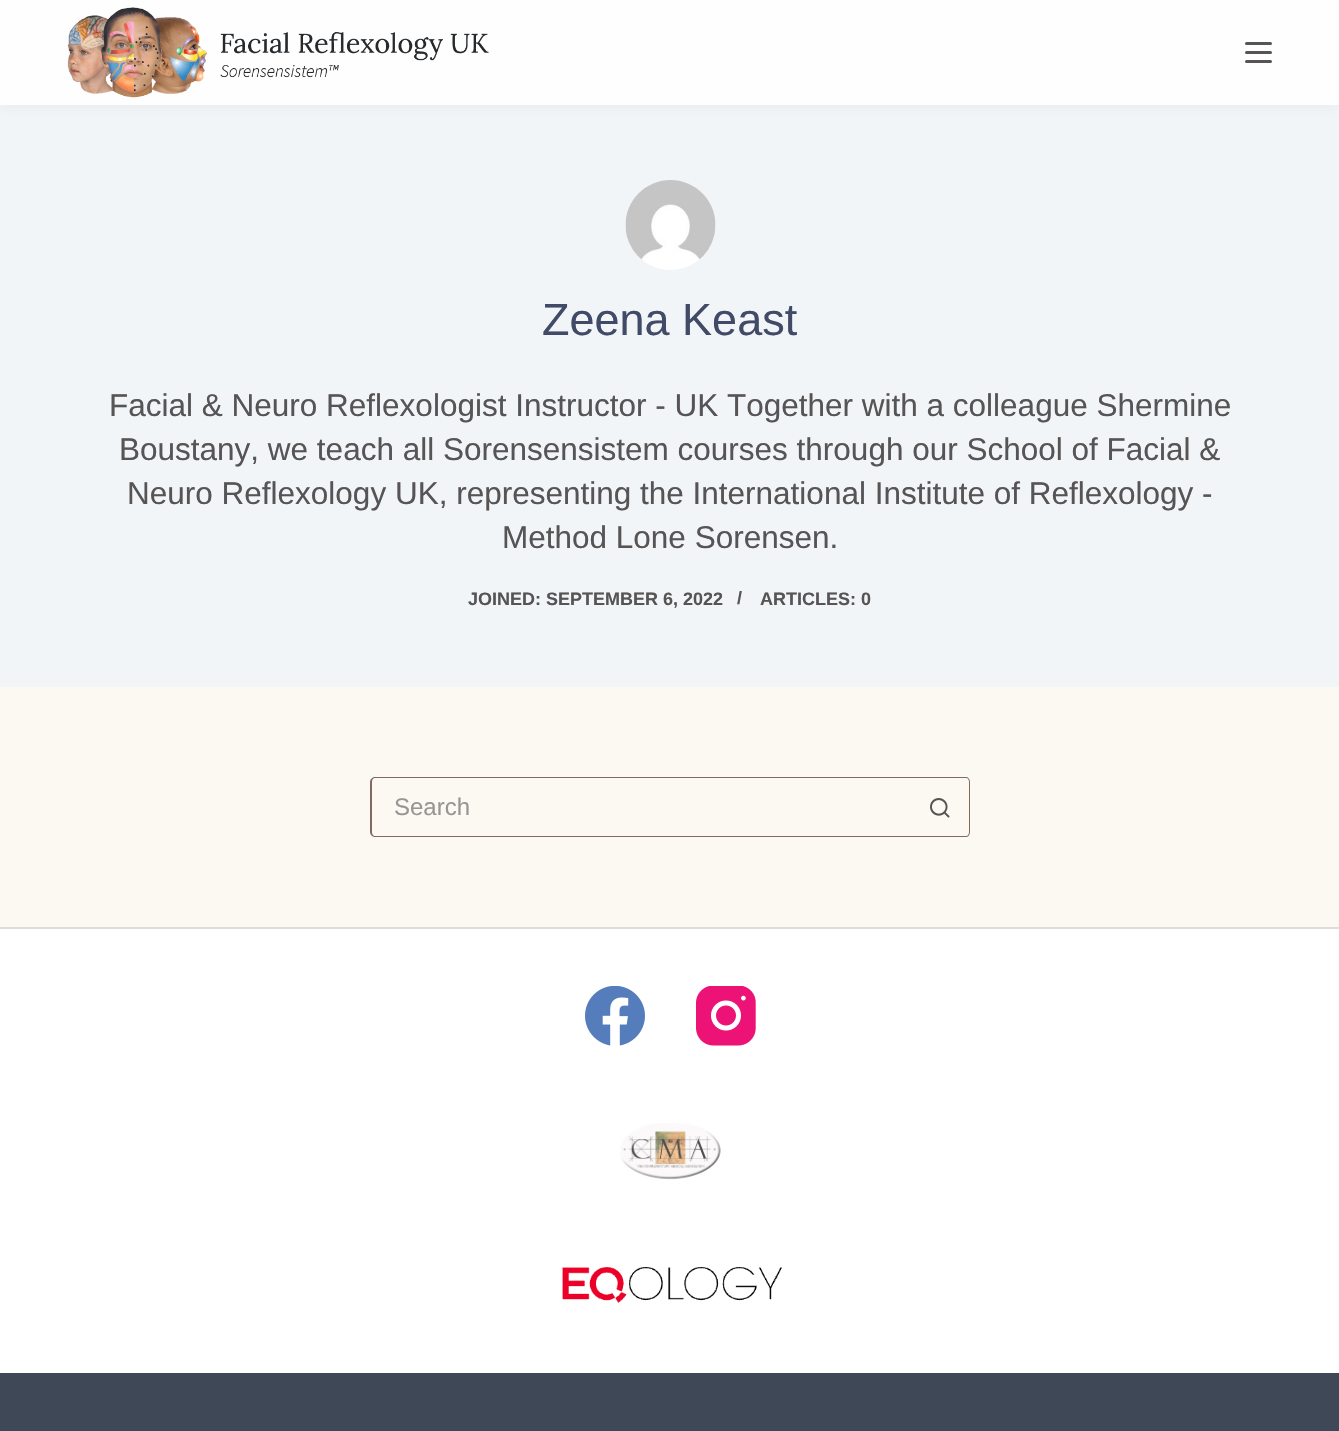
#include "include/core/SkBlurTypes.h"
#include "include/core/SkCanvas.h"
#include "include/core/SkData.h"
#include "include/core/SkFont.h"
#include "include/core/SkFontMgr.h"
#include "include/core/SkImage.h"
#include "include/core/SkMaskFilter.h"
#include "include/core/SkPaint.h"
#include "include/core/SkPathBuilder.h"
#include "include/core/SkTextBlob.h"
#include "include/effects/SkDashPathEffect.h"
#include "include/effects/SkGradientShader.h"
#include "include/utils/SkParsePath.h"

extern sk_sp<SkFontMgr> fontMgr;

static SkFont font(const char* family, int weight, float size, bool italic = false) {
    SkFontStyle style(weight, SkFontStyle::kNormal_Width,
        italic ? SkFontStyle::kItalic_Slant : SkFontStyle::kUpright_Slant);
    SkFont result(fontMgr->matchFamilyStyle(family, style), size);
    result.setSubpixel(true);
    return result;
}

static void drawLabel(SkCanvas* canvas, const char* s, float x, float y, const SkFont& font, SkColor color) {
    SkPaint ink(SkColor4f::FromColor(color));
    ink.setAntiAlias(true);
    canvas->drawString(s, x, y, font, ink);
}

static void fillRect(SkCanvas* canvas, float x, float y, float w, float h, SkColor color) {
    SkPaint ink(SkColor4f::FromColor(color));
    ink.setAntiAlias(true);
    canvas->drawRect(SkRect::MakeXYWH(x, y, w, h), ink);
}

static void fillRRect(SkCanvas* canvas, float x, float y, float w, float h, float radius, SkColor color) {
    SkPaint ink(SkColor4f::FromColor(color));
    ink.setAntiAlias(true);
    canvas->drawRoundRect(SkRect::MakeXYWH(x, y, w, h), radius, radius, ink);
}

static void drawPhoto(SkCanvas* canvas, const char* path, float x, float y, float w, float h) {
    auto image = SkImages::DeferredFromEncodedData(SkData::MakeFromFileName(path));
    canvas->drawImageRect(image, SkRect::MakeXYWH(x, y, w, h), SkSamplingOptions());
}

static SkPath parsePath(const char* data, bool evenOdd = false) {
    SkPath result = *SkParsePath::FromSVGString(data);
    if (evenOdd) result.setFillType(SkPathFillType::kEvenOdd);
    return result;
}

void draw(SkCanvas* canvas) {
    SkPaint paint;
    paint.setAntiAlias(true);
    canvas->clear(0xFFFCF9F3);
    fillRect(canvas, 0, 105, 1339, 582, 0xFFF2F5F7);
    paint.setColor(0x0D2C3E50);
    paint.setMaskFilter(SkMaskFilter::MakeBlur(kNormal_SkBlurStyle, 7.5f));
    canvas->drawRect(SkRect::MakeXYWH(0, 2, 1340, 105), paint);
    paint.setMaskFilter(nullptr);
    fillRect(canvas, 0, 0, 1339, 105, 0xFFFEFEFE);
    drawPhoto(canvas, "assets/img1.png", 67, 7, 422, 91);
    fillRRect(canvas, 1245, 42, 27, 3, 1.5f, 0xFF565454);
    fillRRect(canvas, 1245, 51, 27, 3, 1.5f, 0xFF565454);
    fillRRect(canvas, 1245, 60, 27, 3, 1.5f, 0xFF565454);
    drawPhoto(canvas, "assets/img2.png", 625, 180, 91, 90);
    SkFont font1 = font("Liberation Sans", 400, 45);
    drawLabel(canvas, "Zeena Keast", 542, 335, font1, 0xFF414A66);
    SkFont font2 = font("Liberation Sans", 400, 31.5f);
    drawLabel(canvas, "Facial & Neuro Reflexologist Instructor - UK Together with a colleague Shermine", 109, 416, font2, 0xFF565454);
    drawLabel(canvas, "Boustany, we teach all Sorensensistem courses through our School of Facial &", 119, 460, font2, 0xFF565454);
    drawLabel(canvas, "Neuro Reflexology UK, representing the International Institute of Reflexology -", 127, 504, font2, 0xFF565454);
    drawLabel(canvas, "Method Lone Sorensen.", 502, 548, font2, 0xFF565454);
    SkFont font3 = font("Liberation Sans", 700, 18);
    drawLabel(canvas, "JOINED: SEPTEMBER 6, 2022", 468, 605, font3, 0xFF565454);
    drawLabel(canvas, "/", 737, 604, font3, 0xFF565454);
    drawLabel(canvas, "ARTICLES: 0", 760, 605, font3, 0xFF565454);
    paint.setColor(0xFF836A60);
    canvas->drawPath(parsePath("M375 777H910V837H375C373 837 370 835 370 832V782C370 779 373 777 375 777ZM375 778H910V836H375C373 836 372 834 372 832V782C372 780 373 778 375 778Z", true), paint);
    SkFont font4 = font("Liberation Sans", 400, 24);
    drawLabel(canvas, "Search", 394, 815, font4, 0xFF989694);
    canvas->drawPath(parsePath("M910 777H966C968 777 970 779 970 782V832C970 835 968 837 966 837H910ZM910 778H966C968 778 969 780 969 782V832C969 834 968 836 966 836H910Z", true), paint);
    drawPhoto(canvas, "assets/img3.png", 930, 798, 20, 20);
    fillRect(canvas, 0, 929, 1339, 444, 0xFFFFFFFF);
    fillRect(canvas, 0, 927, 1339, 2, 0xFFDDDDDD);
    drawPhoto(canvas, "assets/img4.png", 585, 986, 60, 60);
    drawPhoto(canvas, "assets/img5.png", 696, 986, 60, 60);
    drawPhoto(canvas, "assets/img6.png", 620, 1123, 101, 57);
    drawPhoto(canvas, "assets/img7.png", 562, 1267, 220, 36);
    fillRect(canvas, 0, 1373, 1339, 58, 0xFF3F4857);
}
